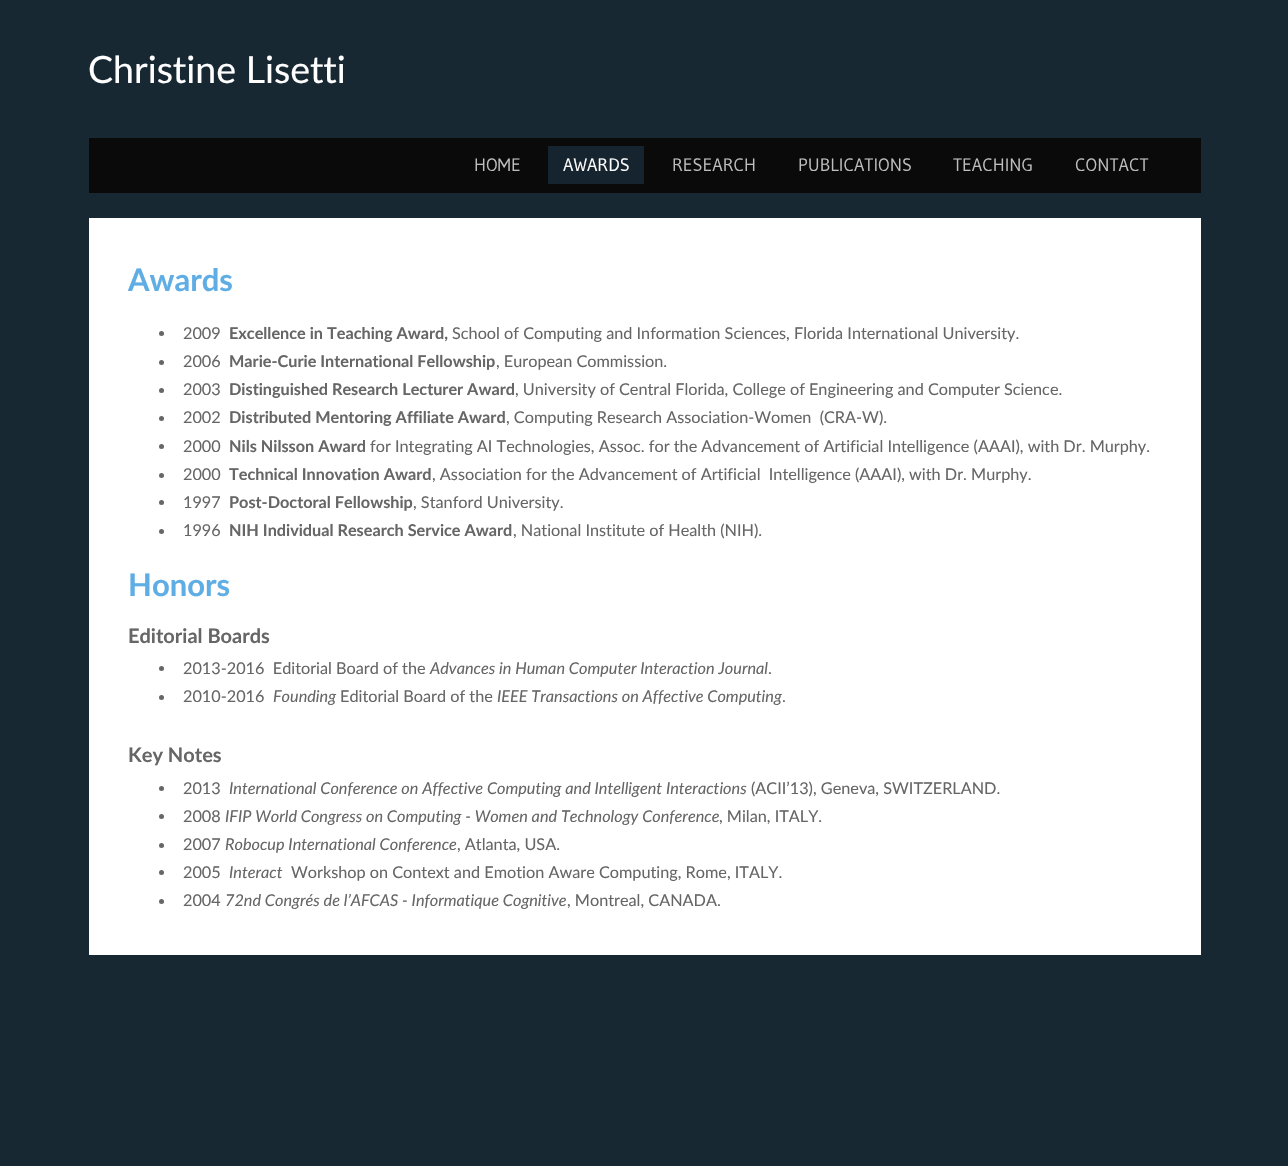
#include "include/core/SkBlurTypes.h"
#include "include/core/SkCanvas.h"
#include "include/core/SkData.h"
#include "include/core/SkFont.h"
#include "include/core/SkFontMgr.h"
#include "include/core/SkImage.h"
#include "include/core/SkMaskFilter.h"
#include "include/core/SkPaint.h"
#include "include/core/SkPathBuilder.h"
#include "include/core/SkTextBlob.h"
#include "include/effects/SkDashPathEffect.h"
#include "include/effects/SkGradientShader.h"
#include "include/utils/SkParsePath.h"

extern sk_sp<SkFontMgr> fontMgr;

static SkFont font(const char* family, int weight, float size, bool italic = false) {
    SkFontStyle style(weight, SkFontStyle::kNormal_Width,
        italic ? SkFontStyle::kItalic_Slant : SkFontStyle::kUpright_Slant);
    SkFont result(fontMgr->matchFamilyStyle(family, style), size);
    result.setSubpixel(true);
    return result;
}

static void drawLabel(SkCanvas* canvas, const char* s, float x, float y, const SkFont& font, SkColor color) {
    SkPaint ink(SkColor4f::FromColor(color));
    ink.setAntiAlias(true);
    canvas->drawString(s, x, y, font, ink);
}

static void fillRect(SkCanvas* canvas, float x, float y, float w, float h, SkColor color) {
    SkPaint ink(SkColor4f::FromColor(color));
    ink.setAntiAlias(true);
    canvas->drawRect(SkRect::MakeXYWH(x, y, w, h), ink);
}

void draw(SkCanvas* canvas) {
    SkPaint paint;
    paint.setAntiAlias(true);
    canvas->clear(0xFF172833);
    SkFont font1 = font("Lato", 400, 37.5f);
    drawLabel(canvas, "Christine Lisetti", 88, 83, font1, 0xFFFFFFFF);
    fillRect(canvas, 89, 138, 1112, 55, 0xFF0A0A0A);
    SkFont font2 = font("Gudea", 400, 18);
    drawLabel(canvas, "HOME", 474, 171, font2, 0xFFBEBEBE);
    fillRect(canvas, 548, 146, 96, 38, 0xFF15242E);
    drawLabel(canvas, "AWARDS", 563, 171, font2, 0xFFFFFFFF);
    drawLabel(canvas, "RESEARCH", 672, 171, font2, 0xFFBEBEBE);
    drawLabel(canvas, "PUBLICATIONS", 798, 171, font2, 0xFFBEBEBE);
    drawLabel(canvas, "TEACHING", 953, 171, font2, 0xFFBEBEBE);
    drawLabel(canvas, "CONTACT", 1075, 171, font2, 0xFFBEBEBE);
    fillRect(canvas, 89, 218, 1112, 737, 0xFFFFFFFF);
    SkFont font3 = font("Lato", 700, 31);
    drawLabel(canvas, "Awards", 128, 291, font3, 0xFF5FADE5);
    paint.setColor(0xFF666666);
    canvas->drawCircle(161.5f, 333.5f, 2.5f, paint);
    SkFont font4 = font("Lato", 400, 16.25f);
    drawLabel(canvas, "2009", 183, 339, font4, 0xFF666666);
    SkFont font5 = font("Lato", 700, 16.25f);
    drawLabel(canvas, "Excellence in Teaching Award,", 229, 339, font5, 0xFF666666);
    drawLabel(canvas, "School of Computing and Information Sciences, Florida International University.", 452, 339, font4, 0xFF666666);
    canvas->drawCircle(161.5f, 362.5f, 2.5f, paint);
    drawLabel(canvas, "2006", 183, 367, font4, 0xFF666666);
    drawLabel(canvas, "Marie-Curie International Fellowship", 229, 367, font5, 0xFF666666);
    drawLabel(canvas, ", European Commission.", 496, 367, font4, 0xFF666666);
    canvas->drawCircle(161.5f, 390.5f, 2.5f, paint);
    drawLabel(canvas, "2003", 183, 395, font4, 0xFF666666);
    drawLabel(canvas, "Distinguished Research Lecturer Award", 229, 395, font5, 0xFF666666);
    drawLabel(canvas, ", University of Central Florida, College of Engineering and Computer Science.", 515, 395, font4, 0xFF666666);
    canvas->drawCircle(161.5f, 418.5f, 2.5f, paint);
    drawLabel(canvas, "2002", 183, 423, font4, 0xFF666666);
    drawLabel(canvas, "Distributed Mentoring Affiliate Award", 229, 423, font5, 0xFF666666);
    drawLabel(canvas, ", Computing Research Association-Women  (CRA-W).", 506, 423, font4, 0xFF666666);
    canvas->drawCircle(161.5f, 446.5f, 2.5f, paint);
    drawLabel(canvas, "2000", 183, 452, font4, 0xFF666666);
    drawLabel(canvas, "Nils Nilsson Award", 229, 452, font5, 0xFF666666);
    drawLabel(canvas, "for Integrating AI Technologies, Assoc. for the Advancement of Artificial Intelligence (AAAI), with Dr. Murphy.", 370, 452, font4, 0xFF666666);
    canvas->drawCircle(161.5f, 475.5f, 2.5f, paint);
    drawLabel(canvas, "2000", 183, 480, font4, 0xFF666666);
    drawLabel(canvas, "Technical Innovation Award", 229, 480, font5, 0xFF666666);
    drawLabel(canvas, ", Association for the Advancement of Artificial  Intelligence (AAAI), with Dr. Murphy.", 432, 480, font4, 0xFF666666);
    canvas->drawCircle(161.5f, 502.5f, 2.5f, paint);
    drawLabel(canvas, "1997", 183, 508, font4, 0xFF666666);
    drawLabel(canvas, "Post-Doctoral Fellowship", 229, 508, font5, 0xFF666666);
    drawLabel(canvas, ", Stanford University.", 413, 508, font4, 0xFF666666);
    canvas->drawCircle(161.5f, 531.5f, 2.5f, paint);
    drawLabel(canvas, "1996", 183, 536, font4, 0xFF666666);
    drawLabel(canvas, "NIH Individual Research Service Award", 229, 536, font5, 0xFF666666);
    drawLabel(canvas, ", National Institute of Health (NIH).", 513, 536, font4, 0xFF666666);
    drawLabel(canvas, "Honors", 128, 596, font3, 0xFF5FADE5);
    SkFont font6 = font("Lato", 700, 20);
    drawLabel(canvas, "Editorial Boards", 128, 643, font6, 0xFF666666);
    canvas->drawCircle(161.5f, 668.5f, 2.5f, paint);
    drawLabel(canvas, "2013-2016  Editorial Board of the", 183, 674, font4, 0xFF666666);
    SkFont font7 = font("Lato", 400, 16.25f, true);
    drawLabel(canvas, "Advances in Human Computer Interaction Journal", 430, 674, font7, 0xFF666666);
    drawLabel(canvas, ".", 768, 674, font4, 0xFF666666);
    canvas->drawCircle(161.5f, 697.5f, 2.5f, paint);
    drawLabel(canvas, "2010-2016", 183, 702, font4, 0xFF666666);
    drawLabel(canvas, "Founding", 273, 702, font7, 0xFF666666);
    drawLabel(canvas, "Editorial Board of the", 340, 702, font4, 0xFF666666);
    drawLabel(canvas, "IEEE Transactions on Affective Computing", 497, 702, font7, 0xFF666666);
    drawLabel(canvas, ".", 782, 702, font4, 0xFF666666);
    drawLabel(canvas, "Key Notes", 128, 762, font6, 0xFF666666);
    canvas->drawCircle(161.5f, 788.5f, 2.5f, paint);
    drawLabel(canvas, "2013", 183, 794, font4, 0xFF666666);
    drawLabel(canvas, "International Conference on Affective Computing and Intelligent Interactions", 229, 794, font7, 0xFF666666);
    drawLabel(canvas, "(ACII’13), Geneva, SWITZERLAND.", 751, 794, font4, 0xFF666666);
    canvas->drawCircle(161.5f, 816.5f, 2.5f, paint);
    drawLabel(canvas, "2008", 183, 822, font4, 0xFF666666);
    drawLabel(canvas, "IFIP World Congress on Computing - Women and Technology Conference", 225, 822, font7, 0xFF666666);
    drawLabel(canvas, ", Milan, ITALY.", 719, 822, font4, 0xFF666666);
    canvas->drawCircle(161.5f, 845.5f, 2.5f, paint);
    drawLabel(canvas, "2007", 183, 850, font4, 0xFF666666);
    drawLabel(canvas, "Robocup International Conference", 225, 850, font7, 0xFF666666);
    drawLabel(canvas, ", Atlanta, USA.", 457, 850, font4, 0xFF666666);
    canvas->drawCircle(161.5f, 872.5f, 2.5f, paint);
    drawLabel(canvas, "2005", 183, 878, font4, 0xFF666666);
    drawLabel(canvas, "Interact", 229, 878, font7, 0xFF666666);
    drawLabel(canvas, "Workshop on Context and Emotion Aware Computing, Rome, ITALY.", 291, 878, font4, 0xFF666666);
    canvas->drawCircle(161.5f, 901.5f, 2.5f, paint);
    drawLabel(canvas, "2004", 183, 906, font4, 0xFF666666);
    drawLabel(canvas, "72nd Congrés de l’AFCAS - Informatique Cognitive", 225, 906, font7, 0xFF666666);
    drawLabel(canvas, ", Montreal, CANADA.", 567, 906, font4, 0xFF666666);
}
